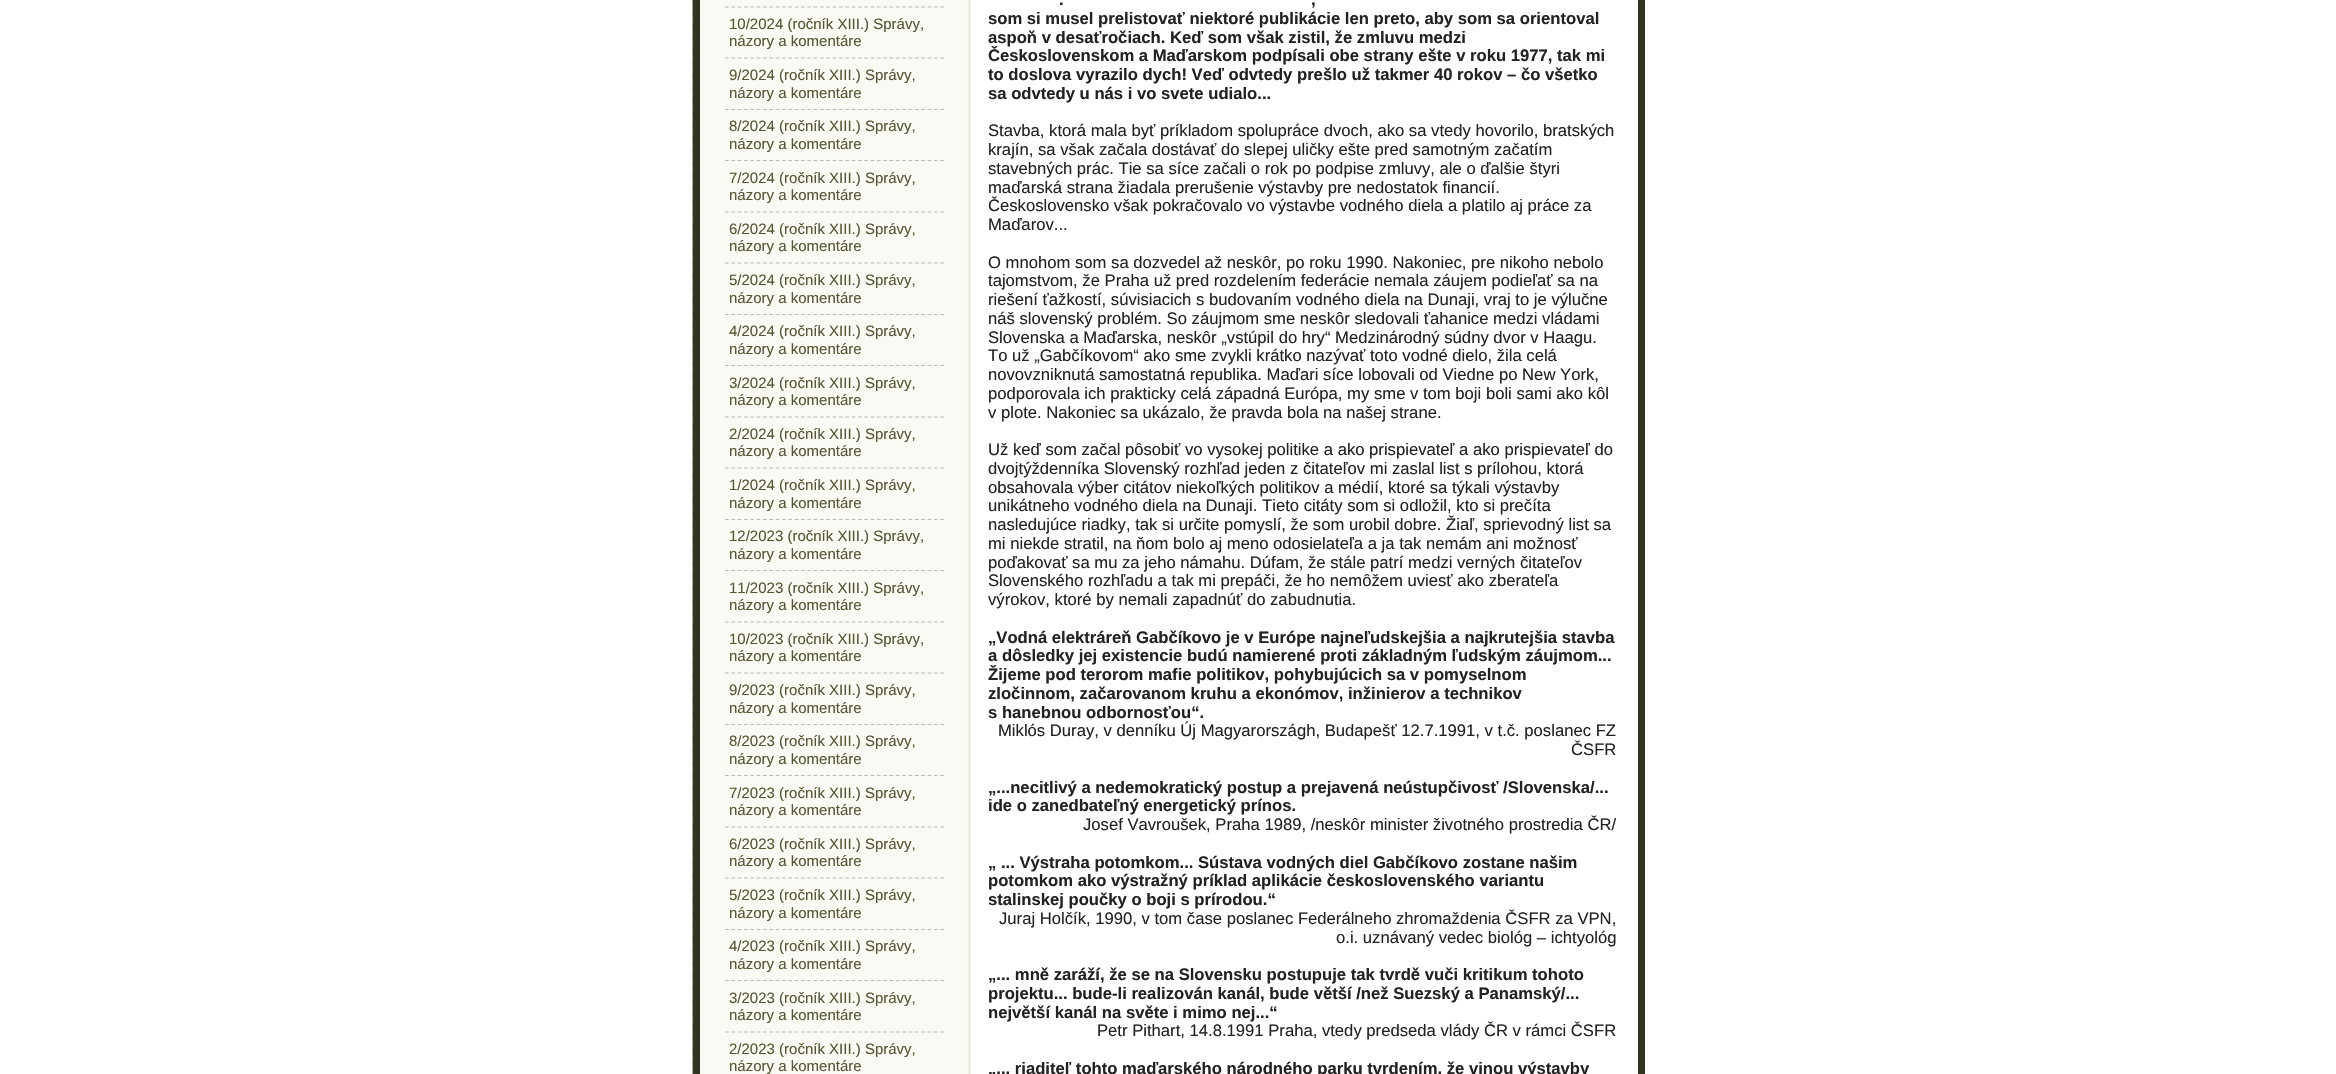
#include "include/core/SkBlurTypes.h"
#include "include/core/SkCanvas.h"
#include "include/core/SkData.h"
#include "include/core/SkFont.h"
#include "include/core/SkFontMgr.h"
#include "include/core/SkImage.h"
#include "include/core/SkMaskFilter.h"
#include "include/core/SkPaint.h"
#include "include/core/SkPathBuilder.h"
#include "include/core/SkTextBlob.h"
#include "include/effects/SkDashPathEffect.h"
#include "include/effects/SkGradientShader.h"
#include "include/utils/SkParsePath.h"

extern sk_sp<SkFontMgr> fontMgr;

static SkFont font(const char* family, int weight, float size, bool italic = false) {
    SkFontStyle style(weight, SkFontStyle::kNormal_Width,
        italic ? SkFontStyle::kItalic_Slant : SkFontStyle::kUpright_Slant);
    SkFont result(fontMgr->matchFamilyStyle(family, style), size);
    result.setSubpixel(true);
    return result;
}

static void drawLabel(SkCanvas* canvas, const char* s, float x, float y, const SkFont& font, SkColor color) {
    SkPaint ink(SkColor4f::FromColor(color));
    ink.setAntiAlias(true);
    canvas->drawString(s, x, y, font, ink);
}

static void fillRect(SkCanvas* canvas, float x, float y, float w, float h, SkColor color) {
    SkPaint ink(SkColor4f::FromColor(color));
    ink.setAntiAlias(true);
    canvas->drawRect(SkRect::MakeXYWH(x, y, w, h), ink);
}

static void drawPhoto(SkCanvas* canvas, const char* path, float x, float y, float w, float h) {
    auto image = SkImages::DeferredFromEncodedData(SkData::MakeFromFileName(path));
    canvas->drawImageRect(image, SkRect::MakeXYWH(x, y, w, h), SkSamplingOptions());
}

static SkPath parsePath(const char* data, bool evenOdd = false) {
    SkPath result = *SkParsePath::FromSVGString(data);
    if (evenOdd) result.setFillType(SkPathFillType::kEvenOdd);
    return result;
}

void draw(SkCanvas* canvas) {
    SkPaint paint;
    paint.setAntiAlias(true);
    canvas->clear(0xFFFFFFFF);
    drawPhoto(canvas, "assets/img1.png", 692, 0, 1, 1074);
    paint.setStroke(true);
    paint.setStrokeWidth(8);
    paint.setColor(0xFF333322);
    canvas->drawRect(SkRect::MakeXYWH(697, -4, 944, 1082), paint);
    fillRect(canvas, 1637, 0, 1, 1074, 0xFFFFFFFF);
    drawPhoto(canvas, "assets/img2.png", 700, 0, 271, 1074);
    paint.setStrokeWidth(1.2f);
    paint.setColor(0xFFBCBAAC);
    paint.setPathEffect(SkDashPathEffect::Make({{3.75f, 2.58f}}, 0));
    canvas->drawPath(parsePath("M725 7H944"), paint);
    paint.setPathEffect(nullptr);
    SkFont font1 = font("Liberation Sans", 400, 15);
    drawLabel(canvas, "10/2024 (ročník XIII.) Správy,", 729, 29, font1, 0xFF555533);
    drawLabel(canvas, "názory a komentáre", 729, 46, font1, 0xFF555533);
    paint.setPathEffect(SkDashPathEffect::Make({{3.75f, 2.58f}}, 0));
    canvas->drawPath(parsePath("M725 58H944"), paint);
    paint.setPathEffect(nullptr);
    drawLabel(canvas, "9/2024 (ročník XIII.) Správy,", 729, 80, font1, 0xFF555533);
    drawLabel(canvas, "názory a komentáre", 729, 98, font1, 0xFF555533);
    paint.setPathEffect(SkDashPathEffect::Make({{3.75f, 2.58f}}, 0));
    canvas->drawPath(parsePath("M725 109.5H944"), paint);
    paint.setPathEffect(nullptr);
    drawLabel(canvas, "8/2024 (ročník XIII.) Správy,", 729, 131, font1, 0xFF555533);
    drawLabel(canvas, "názory a komentáre", 729, 149, font1, 0xFF555533);
    paint.setPathEffect(SkDashPathEffect::Make({{3.75f, 2.58f}}, 0));
    canvas->drawPath(parsePath("M725 160.5H944"), paint);
    paint.setPathEffect(nullptr);
    drawLabel(canvas, "7/2024 (ročník XIII.) Správy,", 729, 183, font1, 0xFF555533);
    drawLabel(canvas, "názory a komentáre", 729, 200, font1, 0xFF555533);
    paint.setPathEffect(SkDashPathEffect::Make({{3.75f, 2.58f}}, 0));
    canvas->drawPath(parsePath("M725 212H944"), paint);
    paint.setPathEffect(nullptr);
    drawLabel(canvas, "6/2024 (ročník XIII.) Správy,", 729, 234, font1, 0xFF555533);
    drawLabel(canvas, "názory a komentáre", 729, 251, font1, 0xFF555533);
    paint.setPathEffect(SkDashPathEffect::Make({{3.75f, 2.58f}}, 0));
    canvas->drawPath(parsePath("M725 263H944"), paint);
    paint.setPathEffect(nullptr);
    drawLabel(canvas, "5/2024 (ročník XIII.) Správy,", 729, 285, font1, 0xFF555533);
    drawLabel(canvas, "názory a komentáre", 729, 303, font1, 0xFF555533);
    paint.setPathEffect(SkDashPathEffect::Make({{3.75f, 2.58f}}, 0));
    canvas->drawPath(parsePath("M725 314.5H944"), paint);
    paint.setPathEffect(nullptr);
    drawLabel(canvas, "4/2024 (ročník XIII.) Správy,", 729, 336, font1, 0xFF555533);
    drawLabel(canvas, "názory a komentáre", 729, 354, font1, 0xFF555533);
    paint.setPathEffect(SkDashPathEffect::Make({{3.75f, 2.58f}}, 0));
    canvas->drawPath(parsePath("M725 365.5H944"), paint);
    paint.setPathEffect(nullptr);
    drawLabel(canvas, "3/2024 (ročník XIII.) Správy,", 729, 388, font1, 0xFF555533);
    drawLabel(canvas, "názory a komentáre", 729, 405, font1, 0xFF555533);
    paint.setPathEffect(SkDashPathEffect::Make({{3.75f, 2.58f}}, 0));
    canvas->drawPath(parsePath("M725 417H944"), paint);
    paint.setPathEffect(nullptr);
    drawLabel(canvas, "2/2024 (ročník XIII.) Správy,", 729, 439, font1, 0xFF555533);
    drawLabel(canvas, "názory a komentáre", 729, 456, font1, 0xFF555533);
    paint.setPathEffect(SkDashPathEffect::Make({{3.75f, 2.58f}}, 0));
    canvas->drawPath(parsePath("M725 468H944"), paint);
    paint.setPathEffect(nullptr);
    drawLabel(canvas, "1/2024 (ročník XIII.) Správy,", 729, 490, font1, 0xFF555533);
    drawLabel(canvas, "názory a komentáre", 729, 508, font1, 0xFF555533);
    paint.setPathEffect(SkDashPathEffect::Make({{3.75f, 2.58f}}, 0));
    canvas->drawPath(parsePath("M725 519.5H944"), paint);
    paint.setPathEffect(nullptr);
    drawLabel(canvas, "12/2023 (ročník XIII.) Správy,", 729, 541, font1, 0xFF555533);
    drawLabel(canvas, "názory a komentáre", 729, 559, font1, 0xFF555533);
    paint.setPathEffect(SkDashPathEffect::Make({{3.75f, 2.58f}}, 0));
    canvas->drawPath(parsePath("M725 570.5H944"), paint);
    paint.setPathEffect(nullptr);
    drawLabel(canvas, "11/2023 (ročník XIII.) Správy,", 729, 593, font1, 0xFF555533);
    drawLabel(canvas, "názory a komentáre", 729, 610, font1, 0xFF555533);
    paint.setPathEffect(SkDashPathEffect::Make({{3.75f, 2.58f}}, 0));
    canvas->drawPath(parsePath("M725 622H944"), paint);
    paint.setPathEffect(nullptr);
    drawLabel(canvas, "10/2023 (ročník XIII.) Správy,", 729, 644, font1, 0xFF555533);
    drawLabel(canvas, "názory a komentáre", 729, 661, font1, 0xFF555533);
    paint.setPathEffect(SkDashPathEffect::Make({{3.75f, 2.58f}}, 0));
    canvas->drawPath(parsePath("M725 673H944"), paint);
    paint.setPathEffect(nullptr);
    drawLabel(canvas, "9/2023 (ročník XIII.) Správy,", 729, 695, font1, 0xFF555533);
    drawLabel(canvas, "názory a komentáre", 729, 713, font1, 0xFF555533);
    paint.setPathEffect(SkDashPathEffect::Make({{3.75f, 2.58f}}, 0));
    canvas->drawPath(parsePath("M725 724.5H944"), paint);
    paint.setPathEffect(nullptr);
    drawLabel(canvas, "8/2023 (ročník XIII.) Správy,", 729, 746, font1, 0xFF555533);
    drawLabel(canvas, "názory a komentáre", 729, 764, font1, 0xFF555533);
    paint.setPathEffect(SkDashPathEffect::Make({{3.75f, 2.58f}}, 0));
    canvas->drawPath(parsePath("M725 775.5H944"), paint);
    paint.setPathEffect(nullptr);
    drawLabel(canvas, "7/2023 (ročník XIII.) Správy,", 729, 798, font1, 0xFF555533);
    drawLabel(canvas, "názory a komentáre", 729, 815, font1, 0xFF555533);
    paint.setPathEffect(SkDashPathEffect::Make({{3.75f, 2.58f}}, 0));
    canvas->drawPath(parsePath("M725 827H944"), paint);
    paint.setPathEffect(nullptr);
    drawLabel(canvas, "6/2023 (ročník XIII.) Správy,", 729, 849, font1, 0xFF555533);
    drawLabel(canvas, "názory a komentáre", 729, 866, font1, 0xFF555533);
    paint.setPathEffect(SkDashPathEffect::Make({{3.75f, 2.58f}}, 0));
    canvas->drawPath(parsePath("M725 878H944"), paint);
    paint.setPathEffect(nullptr);
    drawLabel(canvas, "5/2023 (ročník XIII.) Správy,", 729, 900, font1, 0xFF555533);
    drawLabel(canvas, "názory a komentáre", 729, 918, font1, 0xFF555533);
    paint.setPathEffect(SkDashPathEffect::Make({{3.75f, 2.58f}}, 0));
    canvas->drawPath(parsePath("M725 929.5H944"), paint);
    paint.setPathEffect(nullptr);
    drawLabel(canvas, "4/2023 (ročník XIII.) Správy,", 729, 951, font1, 0xFF555533);
    drawLabel(canvas, "názory a komentáre", 729, 969, font1, 0xFF555533);
    paint.setPathEffect(SkDashPathEffect::Make({{3.75f, 2.58f}}, 0));
    canvas->drawPath(parsePath("M725 980.5H944"), paint);
    paint.setPathEffect(nullptr);
    drawLabel(canvas, "3/2023 (ročník XIII.) Správy,", 729, 1003, font1, 0xFF555533);
    drawLabel(canvas, "názory a komentáre", 729, 1020, font1, 0xFF555533);
    paint.setPathEffect(SkDashPathEffect::Make({{3.75f, 2.58f}}, 0));
    canvas->drawPath(parsePath("M725 1032H944"), paint);
    paint.setPathEffect(nullptr);
    drawLabel(canvas, "2/2023 (ročník XIII.) Správy,", 729, 1054, font1, 0xFF555533);
    drawLabel(canvas, "názory a komentáre", 729, 1071, font1, 0xFF555533);
    SkFont font2 = font("Liberation Sans", 700, 16.65f);
    drawLabel(canvas, ".", 1059, 5, font2, 0xFF222222);
    drawLabel(canvas, ",", 1311, 5, font2, 0xFF222222);
    drawLabel(canvas, "som si musel prelistovať niektoré publikácie len preto, aby som sa orientoval", 988, 24, font2, 0xFF222222);
    drawLabel(canvas, "aspoň v desaťročiach. Keď som však zistil, že zmluvu medzi", 988, 43, font2, 0xFF222222);
    drawLabel(canvas, "Československom a Maďarskom podpísali obe strany ešte v roku 1977, tak mi", 988, 61, font2, 0xFF222222);
    drawLabel(canvas, "to doslova vyrazilo dych! Veď odvtedy prešlo už takmer 40 rokov – čo všetko", 988, 80, font2, 0xFF222222);
    drawLabel(canvas, "sa odvtedy u nás i vo svete udialo...", 988, 99, font2, 0xFF222222);
    SkFont font3 = font("Liberation Sans", 400, 16.65f);
    drawLabel(canvas, "Stavba, ktorá mala byť príkladom spolupráce dvoch, ako sa vtedy hovorilo, bratských", 988, 136, font3, 0xFF222222);
    drawLabel(canvas, "krajín, sa však začala dostávať do slepej uličky ešte pred samotným začatím", 988, 155, font3, 0xFF222222);
    drawLabel(canvas, "stavebných prác. Tie sa síce začali o rok po podpise zmluvy, ale o ďalšie štyri", 988, 174, font3, 0xFF222222);
    drawLabel(canvas, "maďarská strana žiadala prerušenie výstavby pre nedostatok financií.", 988, 193, font3, 0xFF222222);
    drawLabel(canvas, "Československo však pokračovalo vo výstavbe vodného diela a platilo aj práce za", 988, 211, font3, 0xFF222222);
    drawLabel(canvas, "Maďarov...", 988, 230, font3, 0xFF222222);
    drawLabel(canvas, "O mnohom som sa dozvedel až neskôr, po roku 1990. Nakoniec, pre nikoho nebolo", 988, 268, font3, 0xFF222222);
    drawLabel(canvas, "tajomstvom, že Praha už pred rozdelením federácie nemala záujem podieľať sa na", 988, 286, font3, 0xFF222222);
    drawLabel(canvas, "riešení ťažkostí, súvisiacich s budovaním vodného diela na Dunaji, vraj to je výlučne", 988, 305, font3, 0xFF222222);
    drawLabel(canvas, "náš slovenský problém. So záujmom sme neskôr sledovali ťahanice medzi vládami", 988, 324, font3, 0xFF222222);
    drawLabel(canvas, "Slovenska a Maďarska, neskôr „vstúpil do hry“ Medzinárodný súdny dvor v Haagu.", 988, 343, font3, 0xFF222222);
    drawLabel(canvas, "To už „Gabčíkovom“ ako sme zvykli krátko nazývať toto vodné dielo, žila celá", 988, 361, font3, 0xFF222222);
    drawLabel(canvas, "novovzniknutá samostatná republika. Maďari síce lobovali od Viedne po New York,", 988, 380, font3, 0xFF222222);
    drawLabel(canvas, "podporovala ich prakticky celá západná Európa, my sme v tom boji boli sami ako kôl", 988, 399, font3, 0xFF222222);
    drawLabel(canvas, "v plote. Nakoniec sa ukázalo, že pravda bola na našej strane.", 988, 418, font3, 0xFF222222);
    drawLabel(canvas, "Už keď som začal pôsobiť vo vysokej politike a ako prispievateľ a ako prispievateľ do", 988, 455, font3, 0xFF222222);
    drawLabel(canvas, "dvojtýždenníka Slovenský rozhľad jeden z čitateľov mi zaslal list s prílohou, ktorá", 988, 474, font3, 0xFF222222);
    drawLabel(canvas, "obsahovala výber citátov niekoľkých politikov a médií, ktoré sa týkali výstavby", 988, 493, font3, 0xFF222222);
    drawLabel(canvas, "unikátneho vodného diela na Dunaji. Tieto citáty som si odložil, kto si prečíta", 988, 511, font3, 0xFF222222);
    drawLabel(canvas, "nasledujúce riadky, tak si určite pomyslí, že som urobil dobre. Žiaľ, sprievodný list sa", 988, 530, font3, 0xFF222222);
    drawLabel(canvas, "mi niekde stratil, na ňom bolo aj meno odosielateľa a ja tak nemám ani možnosť", 988, 549, font3, 0xFF222222);
    drawLabel(canvas, "poďakovať sa mu za jeho námahu. Dúfam, že stále patrí medzi verných čitateľov", 988, 568, font3, 0xFF222222);
    drawLabel(canvas, "Slovenského rozhľadu a tak mi prepáči, že ho nemôžem uviesť ako zberateľa", 988, 586, font3, 0xFF222222);
    drawLabel(canvas, "výrokov, ktoré by nemali zapadnúť do zabudnutia.", 988, 605, font3, 0xFF222222);
    drawLabel(canvas, "„Vodná elektráreň Gabčíkovo je v Európe najneľudskejšia a najkrutejšia stavba", 988, 643, font2, 0xFF222222);
    drawLabel(canvas, "a dôsledky jej existencie budú namierené proti základným ľudským záujmom...", 988, 661, font2, 0xFF222222);
    drawLabel(canvas, "Žijeme pod terorom mafie politikov, pohybujúcich sa v pomyselnom", 988, 680, font2, 0xFF222222);
    drawLabel(canvas, "zločinnom, začarovanom kruhu a ekonómov, inžinierov a technikov", 988, 699, font2, 0xFF222222);
    drawLabel(canvas, "s hanebnou odbornosťou“.", 988, 718, font2, 0xFF222222);
    drawLabel(canvas, "Miklós Duray, v denníku Új Magyarországh, Budapešť 12.7.1991, v t.č. poslanec FZ", 998, 736, font3, 0xFF222222);
    drawLabel(canvas, "ČSFR", 1571, 755, font3, 0xFF222222);
    drawLabel(canvas, "„...necitlivý a nedemokratický postup a prejavená neústupčivosť /Slovenska/...", 988, 793, font2, 0xFF222222);
    drawLabel(canvas, "ide o zanedbateľný energetický prínos.", 988, 811, font2, 0xFF222222);
    drawLabel(canvas, "Josef Vavroušek, Praha 1989, /neskôr minister životného prostredia ČR/", 1083, 830, font3, 0xFF222222);
    drawLabel(canvas, "„ ... Výstraha potomkom... Sústava vodných diel Gabčíkovo zostane našim", 988, 868, font2, 0xFF222222);
    drawLabel(canvas, "potomkom ako výstražný príklad aplikácie československého variantu", 988, 886, font2, 0xFF222222);
    drawLabel(canvas, "stalinskej poučky o boji s prírodou.“", 988, 905, font2, 0xFF222222);
    drawLabel(canvas, "Juraj Holčík, 1990, v tom čase poslanec Federálneho zhromaždenia ČSFR za VPN,", 999, 924, font3, 0xFF222222);
    drawLabel(canvas, "o.i. uznávaný vedec biológ – ichtyológ", 1336, 943, font3, 0xFF222222);
    drawLabel(canvas, "„... mně zaráží, že se na Slovensku postupuje tak tvrdě vuči kritikum tohoto", 988, 980, font2, 0xFF222222);
    drawLabel(canvas, "projektu... bude-li realizován kanál, bude větší /než Suezský a Panamský/...", 988, 999, font2, 0xFF222222);
    drawLabel(canvas, "největší kanál na světe i mimo nej...“", 988, 1018, font2, 0xFF222222);
    drawLabel(canvas, "Petr Pithart, 14.8.1991 Praha, vtedy predseda vlády ČR v rámci ČSFR", 1097, 1036, font3, 0xFF222222);
    drawLabel(canvas, "„... riaditeľ tohto maďarského národného parku tvrdením, že vinou výstavby", 988, 1074, font2, 0xFF222222);
}
